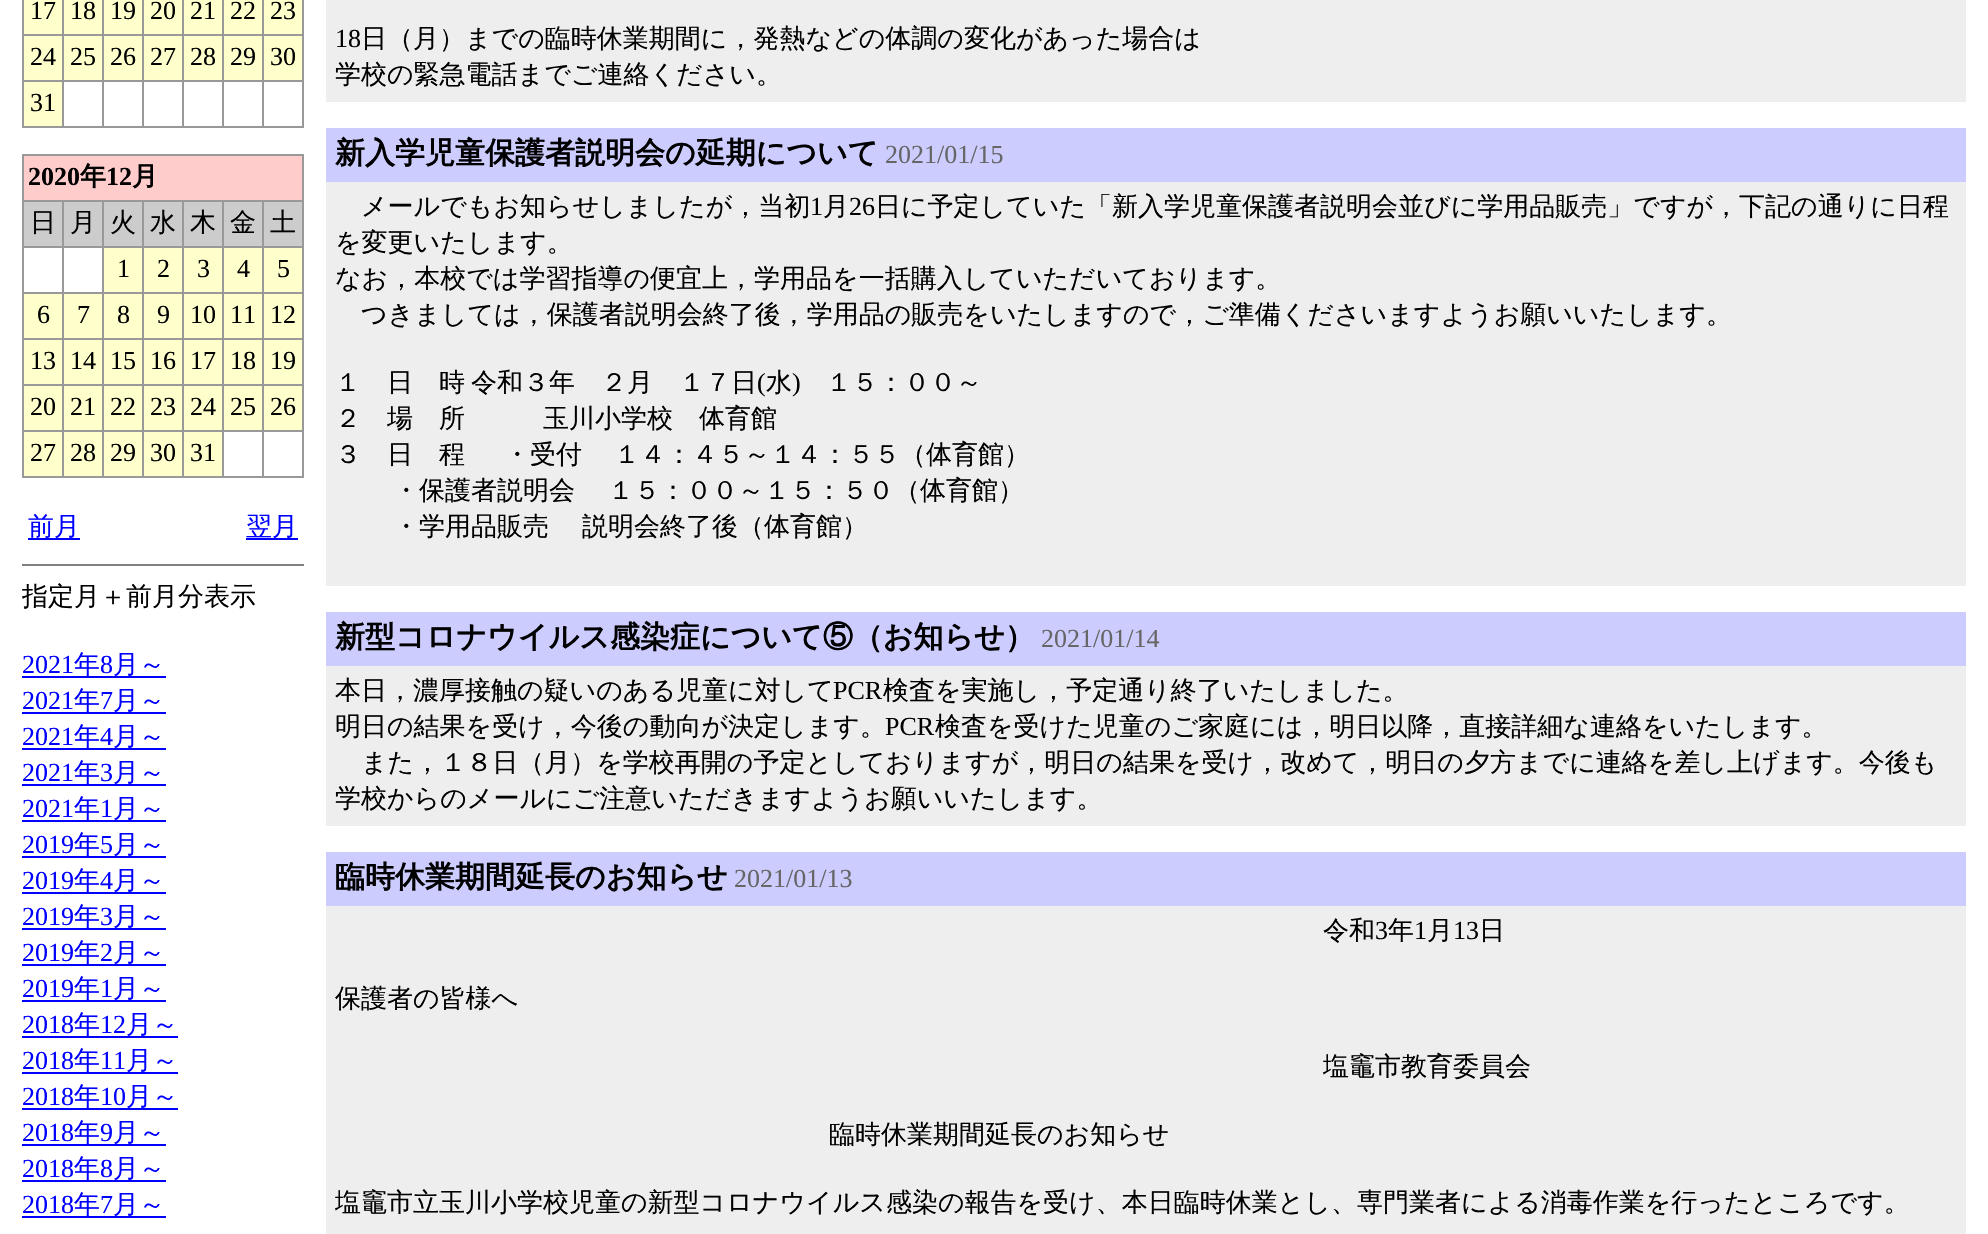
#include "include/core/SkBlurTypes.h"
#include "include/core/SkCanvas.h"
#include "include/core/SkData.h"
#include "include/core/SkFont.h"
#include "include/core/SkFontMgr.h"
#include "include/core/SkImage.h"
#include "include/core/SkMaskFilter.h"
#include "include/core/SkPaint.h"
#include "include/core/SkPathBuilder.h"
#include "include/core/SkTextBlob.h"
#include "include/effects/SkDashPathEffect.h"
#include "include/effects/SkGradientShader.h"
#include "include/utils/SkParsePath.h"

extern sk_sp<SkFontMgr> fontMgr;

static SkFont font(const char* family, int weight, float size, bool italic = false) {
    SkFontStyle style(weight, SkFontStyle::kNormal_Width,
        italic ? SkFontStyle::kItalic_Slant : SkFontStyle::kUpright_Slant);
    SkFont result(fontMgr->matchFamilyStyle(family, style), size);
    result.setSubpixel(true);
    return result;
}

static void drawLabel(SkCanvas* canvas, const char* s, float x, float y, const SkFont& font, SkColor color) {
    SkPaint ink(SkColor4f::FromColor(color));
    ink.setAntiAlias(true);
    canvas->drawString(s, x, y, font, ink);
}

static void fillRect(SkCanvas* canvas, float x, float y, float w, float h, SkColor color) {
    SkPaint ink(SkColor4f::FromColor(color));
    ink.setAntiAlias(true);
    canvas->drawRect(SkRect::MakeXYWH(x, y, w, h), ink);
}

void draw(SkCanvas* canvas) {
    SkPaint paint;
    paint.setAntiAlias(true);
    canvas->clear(0xFFFFFFFF);
    fillRect(canvas, 22, 0, 282, 128, 0xFF999999);
    fillRect(canvas, 24, 0, 38, 34, 0xFFFFFFCC);
    SkFont font1 = font("Liberation Serif", 400, 26);
    drawLabel(canvas, "17", 30, 19, font1, 0xFF000000);
    fillRect(canvas, 64, 0, 38, 34, 0xFFFFFFCC);
    drawLabel(canvas, "18", 70, 19, font1, 0xFF000000);
    fillRect(canvas, 104, 0, 38, 34, 0xFFFFFFCC);
    drawLabel(canvas, "19", 110, 19, font1, 0xFF000000);
    fillRect(canvas, 144, 0, 38, 34, 0xFFFFFFCC);
    drawLabel(canvas, "20", 150, 19, font1, 0xFF000000);
    fillRect(canvas, 184, 0, 38, 34, 0xFFFFFFCC);
    drawLabel(canvas, "21", 190, 19, font1, 0xFF000000);
    fillRect(canvas, 224, 0, 38, 34, 0xFFFFFFCC);
    drawLabel(canvas, "22", 230, 19, font1, 0xFF000000);
    fillRect(canvas, 264, 0, 38, 34, 0xFFFFFFCC);
    drawLabel(canvas, "23", 270, 19, font1, 0xFF000000);
    fillRect(canvas, 24, 36, 38, 44, 0xFFFFFFCC);
    drawLabel(canvas, "24", 30, 65, font1, 0xFF000000);
    fillRect(canvas, 64, 36, 38, 44, 0xFFFFFFCC);
    drawLabel(canvas, "25", 70, 65, font1, 0xFF000000);
    fillRect(canvas, 104, 36, 38, 44, 0xFFFFFFCC);
    drawLabel(canvas, "26", 110, 65, font1, 0xFF000000);
    fillRect(canvas, 144, 36, 38, 44, 0xFFFFFFCC);
    drawLabel(canvas, "27", 150, 65, font1, 0xFF000000);
    fillRect(canvas, 184, 36, 38, 44, 0xFFFFFFCC);
    drawLabel(canvas, "28", 190, 65, font1, 0xFF000000);
    fillRect(canvas, 224, 36, 38, 44, 0xFFFFFFCC);
    drawLabel(canvas, "29", 230, 65, font1, 0xFF000000);
    fillRect(canvas, 264, 36, 38, 44, 0xFFFFFFCC);
    drawLabel(canvas, "30", 270, 65, font1, 0xFF000000);
    fillRect(canvas, 24, 82, 38, 44, 0xFFFFFFCC);
    drawLabel(canvas, "31", 30, 111, font1, 0xFF000000);
    fillRect(canvas, 64, 82, 38, 44, 0xFFFFFFFF);
    fillRect(canvas, 104, 82, 38, 44, 0xFFFFFFFF);
    fillRect(canvas, 144, 82, 38, 44, 0xFFFFFFFF);
    fillRect(canvas, 184, 82, 38, 44, 0xFFFFFFFF);
    fillRect(canvas, 224, 82, 38, 44, 0xFFFFFFFF);
    fillRect(canvas, 264, 82, 38, 44, 0xFFFFFFFF);
    fillRect(canvas, 22, 154, 282, 324, 0xFF999999);
    fillRect(canvas, 24, 156, 278, 44, 0xFFFFCCCC);
    SkFont font2 = font("Liberation Serif", 700, 26);
    drawLabel(canvas, "2020", 28, 185, font2, 0xFF000000);
    SkFont font3 = font("WenQuanYi Zen Hei", 700, 26);
    drawLabel(canvas, "年", 80, 185, font3, 0xFF000000);
    drawLabel(canvas, "12", 106, 185, font2, 0xFF000000);
    drawLabel(canvas, "月", 132, 185, font3, 0xFF000000);
    fillRect(canvas, 24, 202, 38, 44, 0xFFCCCCCC);
    SkFont font4 = font("WenQuanYi Zen Hei", 500, 26);
    drawLabel(canvas, "日", 30, 231, font4, 0xFF000000);
    fillRect(canvas, 64, 202, 38, 44, 0xFFCCCCCC);
    drawLabel(canvas, "月", 70, 231, font4, 0xFF000000);
    fillRect(canvas, 104, 202, 38, 44, 0xFFCCCCCC);
    drawLabel(canvas, "火", 110, 231, font4, 0xFF000000);
    fillRect(canvas, 144, 202, 38, 44, 0xFFCCCCCC);
    drawLabel(canvas, "水", 150, 231, font4, 0xFF000000);
    fillRect(canvas, 184, 202, 38, 44, 0xFFCCCCCC);
    drawLabel(canvas, "木", 190, 231, font4, 0xFF000000);
    fillRect(canvas, 224, 202, 38, 44, 0xFFCCCCCC);
    drawLabel(canvas, "金", 230, 231, font4, 0xFF000000);
    fillRect(canvas, 264, 202, 38, 44, 0xFFCCCCCC);
    drawLabel(canvas, "土", 270, 231, font4, 0xFF000000);
    fillRect(canvas, 24, 248, 38, 44, 0xFFFFFFFF);
    fillRect(canvas, 64, 248, 38, 44, 0xFFFFFFFF);
    fillRect(canvas, 104, 248, 38, 44, 0xFFFFFFCC);
    drawLabel(canvas, "1", 117, 277, font1, 0xFF000000);
    fillRect(canvas, 144, 248, 38, 44, 0xFFFFFFCC);
    drawLabel(canvas, "2", 157, 277, font1, 0xFF000000);
    fillRect(canvas, 184, 248, 38, 44, 0xFFFFFFCC);
    drawLabel(canvas, "3", 197, 277, font1, 0xFF000000);
    fillRect(canvas, 224, 248, 38, 44, 0xFFFFFFCC);
    drawLabel(canvas, "4", 237, 277, font1, 0xFF000000);
    fillRect(canvas, 264, 248, 38, 44, 0xFFFFFFCC);
    drawLabel(canvas, "5", 277, 277, font1, 0xFF000000);
    fillRect(canvas, 24, 294, 38, 44, 0xFFFFFFCC);
    drawLabel(canvas, "6", 37, 323, font1, 0xFF000000);
    fillRect(canvas, 64, 294, 38, 44, 0xFFFFFFCC);
    drawLabel(canvas, "7", 77, 323, font1, 0xFF000000);
    fillRect(canvas, 104, 294, 38, 44, 0xFFFFFFCC);
    drawLabel(canvas, "8", 117, 323, font1, 0xFF000000);
    fillRect(canvas, 144, 294, 38, 44, 0xFFFFFFCC);
    drawLabel(canvas, "9", 157, 323, font1, 0xFF000000);
    fillRect(canvas, 184, 294, 38, 44, 0xFFFFFFCC);
    drawLabel(canvas, "10", 190, 323, font1, 0xFF000000);
    fillRect(canvas, 224, 294, 38, 44, 0xFFFFFFCC);
    drawLabel(canvas, "11", 230, 323, font1, 0xFF000000);
    fillRect(canvas, 264, 294, 38, 44, 0xFFFFFFCC);
    drawLabel(canvas, "12", 270, 323, font1, 0xFF000000);
    fillRect(canvas, 24, 340, 38, 44, 0xFFFFFFCC);
    drawLabel(canvas, "13", 30, 369, font1, 0xFF000000);
    fillRect(canvas, 64, 340, 38, 44, 0xFFFFFFCC);
    drawLabel(canvas, "14", 70, 369, font1, 0xFF000000);
    fillRect(canvas, 104, 340, 38, 44, 0xFFFFFFCC);
    drawLabel(canvas, "15", 110, 369, font1, 0xFF000000);
    fillRect(canvas, 144, 340, 38, 44, 0xFFFFFFCC);
    drawLabel(canvas, "16", 150, 369, font1, 0xFF000000);
    fillRect(canvas, 184, 340, 38, 44, 0xFFFFFFCC);
    drawLabel(canvas, "17", 190, 369, font1, 0xFF000000);
    fillRect(canvas, 224, 340, 38, 44, 0xFFFFFFCC);
    drawLabel(canvas, "18", 230, 369, font1, 0xFF000000);
    fillRect(canvas, 264, 340, 38, 44, 0xFFFFFFCC);
    drawLabel(canvas, "19", 270, 369, font1, 0xFF000000);
    fillRect(canvas, 24, 386, 38, 44, 0xFFFFFFCC);
    drawLabel(canvas, "20", 30, 415, font1, 0xFF000000);
    fillRect(canvas, 64, 386, 38, 44, 0xFFFFFFCC);
    drawLabel(canvas, "21", 70, 415, font1, 0xFF000000);
    fillRect(canvas, 104, 386, 38, 44, 0xFFFFFFCC);
    drawLabel(canvas, "22", 110, 415, font1, 0xFF000000);
    fillRect(canvas, 144, 386, 38, 44, 0xFFFFFFCC);
    drawLabel(canvas, "23", 150, 415, font1, 0xFF000000);
    fillRect(canvas, 184, 386, 38, 44, 0xFFFFFFCC);
    drawLabel(canvas, "24", 190, 415, font1, 0xFF000000);
    fillRect(canvas, 224, 386, 38, 44, 0xFFFFFFCC);
    drawLabel(canvas, "25", 230, 415, font1, 0xFF000000);
    fillRect(canvas, 264, 386, 38, 44, 0xFFFFFFCC);
    drawLabel(canvas, "26", 270, 415, font1, 0xFF000000);
    fillRect(canvas, 24, 432, 38, 44, 0xFFFFFFCC);
    drawLabel(canvas, "27", 30, 461, font1, 0xFF000000);
    fillRect(canvas, 64, 432, 38, 44, 0xFFFFFFCC);
    drawLabel(canvas, "28", 70, 461, font1, 0xFF000000);
    fillRect(canvas, 104, 432, 38, 44, 0xFFFFFFCC);
    drawLabel(canvas, "29", 110, 461, font1, 0xFF000000);
    fillRect(canvas, 144, 432, 38, 44, 0xFFFFFFCC);
    drawLabel(canvas, "30", 150, 461, font1, 0xFF000000);
    fillRect(canvas, 184, 432, 38, 44, 0xFFFFFFCC);
    drawLabel(canvas, "31", 190, 461, font1, 0xFF000000);
    fillRect(canvas, 224, 432, 38, 44, 0xFFFFFFFF);
    fillRect(canvas, 264, 432, 38, 44, 0xFFFFFFFF);
    fillRect(canvas, 28, 538, 52, 2, 0xFF0000FF);
    drawLabel(canvas, "前月", 28, 535, font4, 0xFF0000FF);
    fillRect(canvas, 246, 538, 52, 2, 0xFF0000FF);
    drawLabel(canvas, "翌月", 246, 535, font4, 0xFF0000FF);
    fillRect(canvas, 22, 564, 282, 2, 0xFF808080);
    drawLabel(canvas, "指定月＋前月分表示", 22, 605, font4, 0xFF000000);
    drawLabel(canvas, "2021", 22, 673, font1, 0xFF0000FF);
    fillRect(canvas, 22, 676, 144, 2, 0xFF0000FF);
    drawLabel(canvas, "年", 74, 673, font4, 0xFF0000FF);
    drawLabel(canvas, "8", 100, 673, font1, 0xFF0000FF);
    drawLabel(canvas, "月～", 113, 673, font4, 0xFF0000FF);
    drawLabel(canvas, "2021", 22, 709, font1, 0xFF0000FF);
    fillRect(canvas, 22, 712, 144, 2, 0xFF0000FF);
    drawLabel(canvas, "年", 74, 709, font4, 0xFF0000FF);
    drawLabel(canvas, "7", 100, 709, font1, 0xFF0000FF);
    drawLabel(canvas, "月～", 113, 709, font4, 0xFF0000FF);
    drawLabel(canvas, "2021", 22, 745, font1, 0xFF0000FF);
    fillRect(canvas, 22, 748, 144, 2, 0xFF0000FF);
    drawLabel(canvas, "年", 74, 745, font4, 0xFF0000FF);
    drawLabel(canvas, "4", 100, 745, font1, 0xFF0000FF);
    drawLabel(canvas, "月～", 113, 745, font4, 0xFF0000FF);
    drawLabel(canvas, "2021", 22, 781, font1, 0xFF0000FF);
    fillRect(canvas, 22, 784, 144, 2, 0xFF0000FF);
    drawLabel(canvas, "年", 74, 781, font4, 0xFF0000FF);
    drawLabel(canvas, "3", 100, 781, font1, 0xFF0000FF);
    drawLabel(canvas, "月～", 113, 781, font4, 0xFF0000FF);
    drawLabel(canvas, "2021", 22, 817, font1, 0xFF0000FF);
    fillRect(canvas, 22, 820, 144, 2, 0xFF0000FF);
    drawLabel(canvas, "年", 74, 817, font4, 0xFF0000FF);
    drawLabel(canvas, "1", 100, 817, font1, 0xFF0000FF);
    drawLabel(canvas, "月～", 113, 817, font4, 0xFF0000FF);
    drawLabel(canvas, "2019", 22, 853, font1, 0xFF0000FF);
    fillRect(canvas, 22, 856, 144, 2, 0xFF0000FF);
    drawLabel(canvas, "年", 74, 853, font4, 0xFF0000FF);
    drawLabel(canvas, "5", 100, 853, font1, 0xFF0000FF);
    drawLabel(canvas, "月～", 113, 853, font4, 0xFF0000FF);
    drawLabel(canvas, "2019", 22, 889, font1, 0xFF0000FF);
    fillRect(canvas, 22, 892, 144, 2, 0xFF0000FF);
    drawLabel(canvas, "年", 74, 889, font4, 0xFF0000FF);
    drawLabel(canvas, "4", 100, 889, font1, 0xFF0000FF);
    drawLabel(canvas, "月～", 113, 889, font4, 0xFF0000FF);
    drawLabel(canvas, "2019", 22, 925, font1, 0xFF0000FF);
    fillRect(canvas, 22, 928, 144, 2, 0xFF0000FF);
    drawLabel(canvas, "年", 74, 925, font4, 0xFF0000FF);
    drawLabel(canvas, "3", 100, 925, font1, 0xFF0000FF);
    drawLabel(canvas, "月～", 113, 925, font4, 0xFF0000FF);
    drawLabel(canvas, "2019", 22, 961, font1, 0xFF0000FF);
    fillRect(canvas, 22, 964, 144, 2, 0xFF0000FF);
    drawLabel(canvas, "年", 74, 961, font4, 0xFF0000FF);
    drawLabel(canvas, "2", 100, 961, font1, 0xFF0000FF);
    drawLabel(canvas, "月～", 113, 961, font4, 0xFF0000FF);
    drawLabel(canvas, "2019", 22, 997, font1, 0xFF0000FF);
    fillRect(canvas, 22, 1000, 144, 2, 0xFF0000FF);
    drawLabel(canvas, "年", 74, 997, font4, 0xFF0000FF);
    drawLabel(canvas, "1", 100, 997, font1, 0xFF0000FF);
    drawLabel(canvas, "月～", 113, 997, font4, 0xFF0000FF);
    drawLabel(canvas, "2018", 22, 1033, font1, 0xFF0000FF);
    fillRect(canvas, 22, 1036, 156, 2, 0xFF0000FF);
    drawLabel(canvas, "年", 74, 1033, font4, 0xFF0000FF);
    drawLabel(canvas, "12", 100, 1033, font1, 0xFF0000FF);
    drawLabel(canvas, "月～", 126, 1033, font4, 0xFF0000FF);
    drawLabel(canvas, "2018", 22, 1069, font1, 0xFF0000FF);
    fillRect(canvas, 22, 1072, 156, 2, 0xFF0000FF);
    drawLabel(canvas, "年", 74, 1069, font4, 0xFF0000FF);
    drawLabel(canvas, "11", 100, 1069, font1, 0xFF0000FF);
    drawLabel(canvas, "月～", 126, 1069, font4, 0xFF0000FF);
    drawLabel(canvas, "2018", 22, 1105, font1, 0xFF0000FF);
    fillRect(canvas, 22, 1108, 156, 2, 0xFF0000FF);
    drawLabel(canvas, "年", 74, 1105, font4, 0xFF0000FF);
    drawLabel(canvas, "10", 100, 1105, font1, 0xFF0000FF);
    drawLabel(canvas, "月～", 126, 1105, font4, 0xFF0000FF);
    drawLabel(canvas, "2018", 22, 1141, font1, 0xFF0000FF);
    fillRect(canvas, 22, 1144, 144, 2, 0xFF0000FF);
    drawLabel(canvas, "年", 74, 1141, font4, 0xFF0000FF);
    drawLabel(canvas, "9", 100, 1141, font1, 0xFF0000FF);
    drawLabel(canvas, "月～", 113, 1141, font4, 0xFF0000FF);
    drawLabel(canvas, "2018", 22, 1177, font1, 0xFF0000FF);
    fillRect(canvas, 22, 1180, 144, 2, 0xFF0000FF);
    drawLabel(canvas, "年", 74, 1177, font4, 0xFF0000FF);
    drawLabel(canvas, "8", 100, 1177, font1, 0xFF0000FF);
    drawLabel(canvas, "月～", 113, 1177, font4, 0xFF0000FF);
    drawLabel(canvas, "2018", 22, 1213, font1, 0xFF0000FF);
    fillRect(canvas, 22, 1216, 144, 2, 0xFF0000FF);
    drawLabel(canvas, "年", 74, 1213, font4, 0xFF0000FF);
    drawLabel(canvas, "7", 100, 1213, font1, 0xFF0000FF);
    drawLabel(canvas, "月～", 113, 1213, font4, 0xFF0000FF);
    fillRect(canvas, 326, 0, 1640, 102, 0xFFEEEEEE);
    drawLabel(canvas, "18", 335, 47, font1, 0xFF000000);
    drawLabel(canvas, "日（月）までの臨時休業期間に，発熱などの体調の変化があった場合は", 361, 47, font4, 0xFF000000);
    drawLabel(canvas, "学校の緊急電話までご連絡ください。", 335, 83, font4, 0xFF000000);
    fillRect(canvas, 326, 128, 1640, 54, 0xFFCCCCFF);
    SkFont font5 = font("WenQuanYi Zen Hei", 700, 30);
    drawLabel(canvas, "新入学児童保護者説明会の延期について", 335, 163, font5, 0xFF000000);
    drawLabel(canvas, "2021/01/15", 885, 163, font1, 0xFF666666);
    fillRect(canvas, 326, 182, 1640, 404, 0xFFEEEEEE);
    drawLabel(canvas, "メールでもお知らせしましたが，当初", 361, 215, font4, 0xFF000000);
    drawLabel(canvas, "1", 810, 215, font1, 0xFF000000);
    drawLabel(canvas, "月", 823, 215, font4, 0xFF000000);
    drawLabel(canvas, "26", 849, 215, font1, 0xFF000000);
    drawLabel(canvas, "日に予定していた「新入学児童保護者説明会並びに学用品販売」ですが，下記の通りに日程", 875, 215, font4, 0xFF000000);
    drawLabel(canvas, "を変更いたします。", 335, 251, font4, 0xFF000000);
    drawLabel(canvas, "なお，本校では学習指導の便宜上，学用品を一括購入していただいております。", 335, 287, font4, 0xFF000000);
    drawLabel(canvas, "つきましては，保護者説明会終了後，学用品の販売をいたしますので，ご準備くださいますようお願いいたします。", 361, 323, font4, 0xFF000000);
    drawLabel(canvas, "１　日　時", 335, 391, font4, 0xFF000000);
    drawLabel(canvas, "令和３年　２月　１７日", 471, 391, font4, 0xFF000000);
    drawLabel(canvas, "(", 757, 391, font1, 0xFF000000);
    drawLabel(canvas, "水", 766, 391, font4, 0xFF000000);
    drawLabel(canvas, ")", 792, 391, font1, 0xFF000000);
    drawLabel(canvas, "１５：００～", 826, 391, font4, 0xFF000000);
    drawLabel(canvas, "２　場　所　　　玉川小学校　体育館", 335, 427, font4, 0xFF000000);
    drawLabel(canvas, "３　日　程", 335, 463, font4, 0xFF000000);
    drawLabel(canvas, "・受付", 504, 463, font4, 0xFF000000);
    drawLabel(canvas, "１４：４５～１４：５５（体育館）", 614, 463, font4, 0xFF000000);
    drawLabel(canvas, "・保護者説明会", 393, 499, font4, 0xFF000000);
    drawLabel(canvas, "１５：００～１５：５０（体育館）", 608, 499, font4, 0xFF000000);
    drawLabel(canvas, "・学用品販売", 393, 535, font4, 0xFF000000);
    drawLabel(canvas, "説明会終了後（体育館）", 582, 535, font4, 0xFF000000);
    fillRect(canvas, 326, 612, 1640, 54, 0xFFCCCCFF);
    drawLabel(canvas, "新型コロナウイルス感染症について⑤（お知らせ）", 335, 647, font5, 0xFF000000);
    drawLabel(canvas, "2021/01/14", 1041, 647, font1, 0xFF666666);
    fillRect(canvas, 326, 666, 1640, 160, 0xFFEEEEEE);
    drawLabel(canvas, "本日，濃厚接触の疑いのある児童に対して", 335, 699, font4, 0xFF000000);
    drawLabel(canvas, "PCR", 833, 699, font1, 0xFF000000);
    drawLabel(canvas, "検査を実施し，予定通り終了いたしました。", 883, 699, font4, 0xFF000000);
    drawLabel(canvas, "明日の結果を受け，今後の動向が決定します。", 335, 735, font4, 0xFF000000);
    drawLabel(canvas, "PCR", 885, 735, font1, 0xFF000000);
    drawLabel(canvas, "検査を受けた児童のご家庭には，明日以降，直接詳細な連絡をいたします。", 935, 735, font4, 0xFF000000);
    drawLabel(canvas, "また，１８日（月）を学校再開の予定としておりますが，明日の結果を受け，改めて，明日の夕方までに連絡を差し上げます。今後も", 361, 771, font4, 0xFF000000);
    drawLabel(canvas, "学校からのメールにご注意いただきますようお願いいたします。", 335, 807, font4, 0xFF000000);
    fillRect(canvas, 326, 852, 1640, 54, 0xFFCCCCFF);
    drawLabel(canvas, "臨時休業期間延長のお知らせ", 335, 887, font5, 0xFF000000);
    drawLabel(canvas, "2021/01/13", 734, 887, font1, 0xFF666666);
    fillRect(canvas, 326, 906, 1640, 328, 0xFFEEEEEE);
    drawLabel(canvas, "令和", 1323, 939, font4, 0xFF000000);
    drawLabel(canvas, "3", 1375, 939, font1, 0xFF000000);
    drawLabel(canvas, "年", 1388, 939, font4, 0xFF000000);
    drawLabel(canvas, "1", 1414, 939, font1, 0xFF000000);
    drawLabel(canvas, "月", 1427, 939, font4, 0xFF000000);
    drawLabel(canvas, "13", 1453, 939, font1, 0xFF000000);
    drawLabel(canvas, "日", 1479, 939, font4, 0xFF000000);
    drawLabel(canvas, "保護者の皆様へ", 335, 1007, font4, 0xFF000000);
    drawLabel(canvas, "塩竈市教育委員会", 1323, 1075, font4, 0xFF000000);
    drawLabel(canvas, "臨時休業期間延長のお知らせ", 829, 1143, font4, 0xFF000000);
    drawLabel(canvas, "塩竈市立玉川小学校児童の新型コロナウイルス感染の報告を受け、本日臨時休業とし、専門業者による消毒作業を行ったところです。", 335, 1211, font4, 0xFF000000);
}
